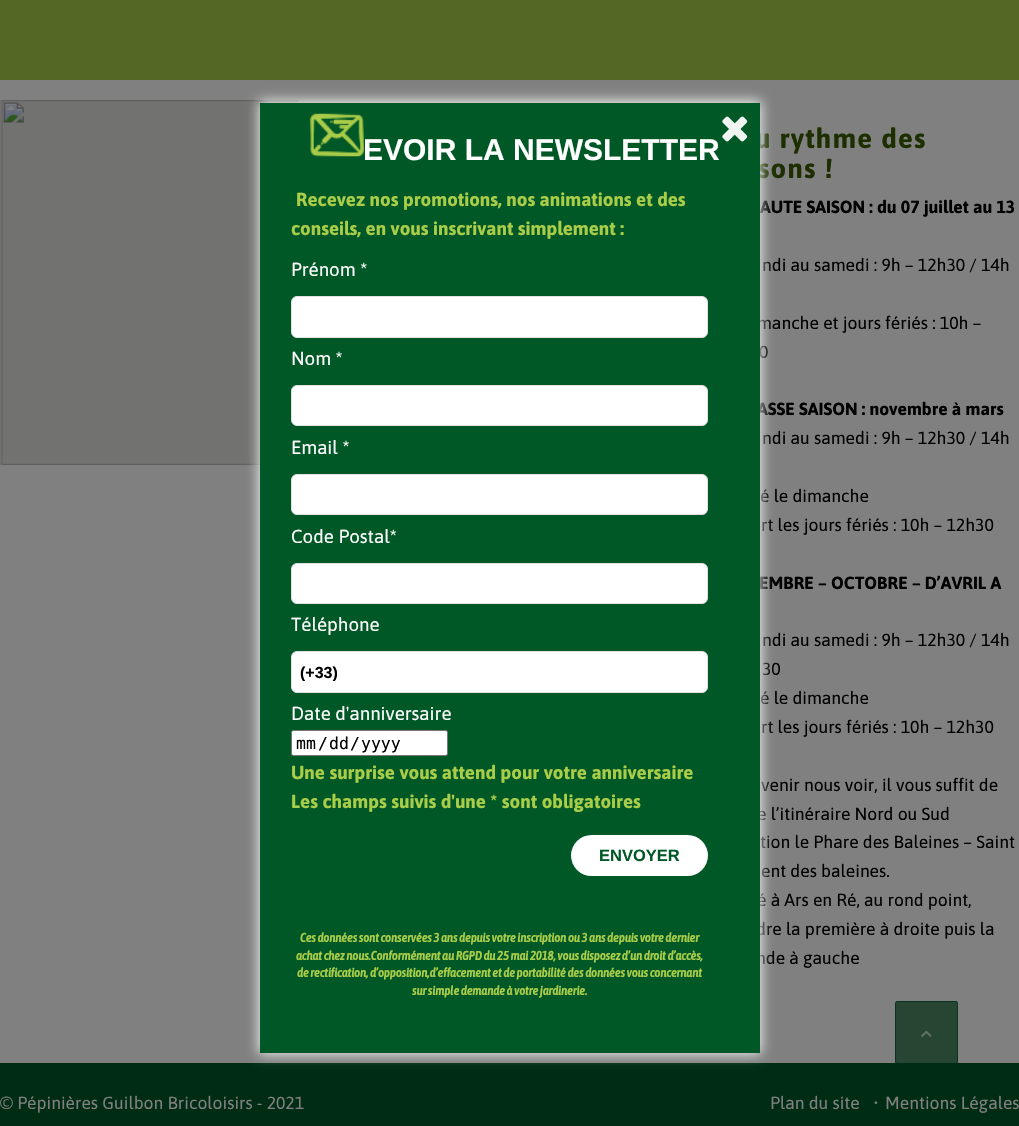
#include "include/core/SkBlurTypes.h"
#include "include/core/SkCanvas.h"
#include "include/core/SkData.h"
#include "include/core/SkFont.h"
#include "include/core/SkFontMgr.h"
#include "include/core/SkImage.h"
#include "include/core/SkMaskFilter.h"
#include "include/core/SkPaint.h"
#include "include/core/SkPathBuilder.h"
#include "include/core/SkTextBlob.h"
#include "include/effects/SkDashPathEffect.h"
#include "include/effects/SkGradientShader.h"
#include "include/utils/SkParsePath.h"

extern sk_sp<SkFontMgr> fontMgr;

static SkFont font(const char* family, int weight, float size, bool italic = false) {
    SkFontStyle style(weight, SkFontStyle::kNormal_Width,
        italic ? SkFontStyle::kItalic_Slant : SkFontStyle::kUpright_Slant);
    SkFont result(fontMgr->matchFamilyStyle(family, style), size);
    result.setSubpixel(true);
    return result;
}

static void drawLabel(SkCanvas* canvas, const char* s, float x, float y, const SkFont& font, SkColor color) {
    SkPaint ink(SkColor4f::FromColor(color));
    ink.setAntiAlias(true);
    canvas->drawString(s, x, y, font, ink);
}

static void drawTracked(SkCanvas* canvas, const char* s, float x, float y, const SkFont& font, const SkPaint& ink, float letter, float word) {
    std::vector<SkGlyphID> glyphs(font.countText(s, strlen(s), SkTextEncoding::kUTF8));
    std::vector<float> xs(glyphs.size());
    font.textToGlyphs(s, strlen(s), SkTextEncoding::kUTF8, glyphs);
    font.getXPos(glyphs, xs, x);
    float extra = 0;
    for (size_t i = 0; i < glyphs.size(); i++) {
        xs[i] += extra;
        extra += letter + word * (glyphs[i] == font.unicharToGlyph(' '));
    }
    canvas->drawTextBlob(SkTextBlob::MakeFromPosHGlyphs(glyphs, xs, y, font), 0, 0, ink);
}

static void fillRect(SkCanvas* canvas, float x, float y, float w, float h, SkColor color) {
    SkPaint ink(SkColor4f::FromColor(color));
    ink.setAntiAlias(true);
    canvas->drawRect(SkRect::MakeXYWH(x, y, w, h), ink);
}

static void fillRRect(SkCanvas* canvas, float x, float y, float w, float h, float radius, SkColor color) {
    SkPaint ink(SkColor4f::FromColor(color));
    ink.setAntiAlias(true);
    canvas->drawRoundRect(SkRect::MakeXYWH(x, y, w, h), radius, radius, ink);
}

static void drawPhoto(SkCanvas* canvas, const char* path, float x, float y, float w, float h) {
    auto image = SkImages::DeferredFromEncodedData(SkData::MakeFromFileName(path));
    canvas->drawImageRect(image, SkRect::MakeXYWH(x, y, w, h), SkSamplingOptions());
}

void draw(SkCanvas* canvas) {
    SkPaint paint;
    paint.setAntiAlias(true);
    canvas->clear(0xFF808080);
    fillRect(canvas, 0, 0, 1019, 80, 0xFF556725);
    drawPhoto(canvas, "assets/img1.png", 0, 100, 299, 365);
    SkFont font1 = font("Asap", 700, 27.5f);
    paint.setColor(0xFF1D2F00);
    drawTracked(canvas, "u rythme des", 755, 148, font1, paint, 1.25f, 0);
    drawTracked(canvas, "sons !", 758, 178, font1, paint, 1.25f, 0);
    SkFont font2 = font("Asap", 700, 17.5f);
    drawLabel(canvas, "AUTE SAISON : du 07 juillet au 13", 760, 213, font2, 0xFF000000);
    SkFont font3 = font("Asap", 400, 17.5f);
    drawLabel(canvas, "ndi au samedi : 9h – 12h30 / 14h", 762, 271, font3, 0xFF000000);
    drawLabel(canvas, "manche et jours fériés : 10h –", 757, 329, font3, 0xFF000000);
    drawLabel(canvas, "0", 759, 358, font3, 0xFF000000);
    drawLabel(canvas, "ASSE SAISON : novembre à mars", 757, 415, font2, 0xFF000000);
    drawLabel(canvas, "ndi au samedi : 9h – 12h30 / 14h", 762, 444, font3, 0xFF000000);
    drawLabel(canvas, "é le dimanche", 760, 502, font3, 0xFF000000);
    drawLabel(canvas, "rt les jours fériés : 10h – 12h30", 761, 531, font3, 0xFF000000);
    drawLabel(canvas, "EMBRE – OCTOBRE – D’AVRIL A", 759, 589, font2, 0xFF000000);
    drawLabel(canvas, "ndi au samedi : 9h – 12h30 / 14h", 762, 646, font3, 0xFF000000);
    drawLabel(canvas, "30", 762, 675, font3, 0xFF000000);
    drawLabel(canvas, "é le dimanche", 760, 704, font3, 0xFF000000);
    drawLabel(canvas, "rt les jours fériés : 10h – 12h30", 761, 733, font3, 0xFF000000);
    drawLabel(canvas, "venir nous voir, il vous suffit de", 761, 791, font3, 0xFF000000);
    drawLabel(canvas, "e l’itinéraire Nord ou Sud", 757, 820, font3, 0xFF000000);
    drawLabel(canvas, "tion le Phare des Baleines – Saint", 760, 848, font3, 0xFF000000);
    drawLabel(canvas, "ent des baleines.", 761, 877, font3, 0xFF000000);
    drawLabel(canvas, "é à Ars en Ré, au rond point,", 757, 906, font3, 0xFF000000);
    drawLabel(canvas, "dre la première à droite puis la", 756, 935, font3, 0xFF000000);
    drawLabel(canvas, "nde à gauche", 756, 964, font3, 0xFF000000);
    fillRect(canvas, 0, 1063, 1019, 63, 0xFF002C13);
    drawLabel(canvas, "© Pépinières Guilbon Bricoloisirs - 2021", 0, 1109, font3, 0xFF808080);
    drawLabel(canvas, "Plan du site", 770, 1109, font3, 0xFF808080);
    drawLabel(canvas, "•", 873, 1109, font3, 0xFF808080);
    drawLabel(canvas, "Mentions Légales", 885, 1109, font3, 0xFF808080);
    paint.setColor(0xFFF0F5F2);
    paint.setMaskFilter(SkMaskFilter::MakeBlur(kNormal_SkBlurStyle, 6));
    canvas->drawRect(SkRect::MakeXYWH(259, 101, 502, 953), paint);
    paint.setMaskFilter(nullptr);
    fillRect(canvas, 260, 103, 500, 950, 0xFF005826);
    drawPhoto(canvas, "assets/img2.png", 722, 116, 26, 26);
    SkFont font4 = font("Liberation Sans", 700, 30);
    drawLabel(canvas, "EVOIR LA NEWSLETTER", 363, 160, font4, 0xFFFFFFFF);
    drawPhoto(canvas, "assets/img3.png", 310, 113, 54, 44);
    SkFont font5 = font("Asap", 700, 18.75f);
    drawLabel(canvas, "Recevez nos promotions, nos animations et des", 296, 206, font5, 0xFFAACD49);
    drawLabel(canvas, "conseils, en vous inscrivant simplement :", 291, 235, font5, 0xFFAACD49);
    SkFont font6 = font("Asap", 400, 18.75f);
    drawLabel(canvas, "Prénom *", 291, 276, font6, 0xFFFFFFFF);
    paint.setColor(0xFFFFFFFF);
    canvas->drawRoundRect(SkRect::MakeXYWH(291.5f, 296.5f, 416, 41), 5.5f, 5.5f, paint);
    paint.setStroke(true);
    paint.setStrokeWidth(1);
    paint.setColor(0xFFE1E1E1);
    canvas->drawRoundRect(SkRect::MakeXYWH(291.5f, 296.5f, 416, 41), 5.5f, 5.5f, paint);
    drawLabel(canvas, "Nom *", 291, 365, font6, 0xFFFFFFFF);
    paint.setStroke(false);
    paint.setColor(0xFFFFFFFF);
    canvas->drawRoundRect(SkRect::MakeXYWH(291.5f, 385.5f, 416, 40), 5.5f, 5.5f, paint);
    paint.setStroke(true);
    paint.setColor(0xFFE1E1E1);
    canvas->drawRoundRect(SkRect::MakeXYWH(291.5f, 385.5f, 416, 40), 5.5f, 5.5f, paint);
    drawLabel(canvas, "Email *", 291, 454, font6, 0xFFFFFFFF);
    paint.setStroke(false);
    paint.setColor(0xFFFFFFFF);
    canvas->drawRoundRect(SkRect::MakeXYWH(291.5f, 474.5f, 416, 40), 5.5f, 5.5f, paint);
    paint.setStroke(true);
    paint.setColor(0xFFE1E1E1);
    canvas->drawRoundRect(SkRect::MakeXYWH(291.5f, 474.5f, 416, 40), 5.5f, 5.5f, paint);
    drawLabel(canvas, "Code Postal*", 291, 543, font6, 0xFFFFFFFF);
    paint.setStroke(false);
    paint.setColor(0xFFFFFFFF);
    canvas->drawRoundRect(SkRect::MakeXYWH(291.5f, 563.5f, 416, 40), 5.5f, 5.5f, paint);
    paint.setStroke(true);
    paint.setColor(0xFFE1E1E1);
    canvas->drawRoundRect(SkRect::MakeXYWH(291.5f, 563.5f, 416, 40), 5.5f, 5.5f, paint);
    drawLabel(canvas, "Téléphone", 291, 631, font6, 0xFFFFFFFF);
    paint.setStroke(false);
    paint.setColor(0xFFFFFFFF);
    canvas->drawRoundRect(SkRect::MakeXYWH(291.5f, 651.5f, 416, 41), 5.5f, 5.5f, paint);
    paint.setStroke(true);
    paint.setColor(0xFFE1E1E1);
    canvas->drawRoundRect(SkRect::MakeXYWH(291.5f, 651.5f, 416, 41), 5.5f, 5.5f, paint);
    canvas->save();
    canvas->clipRect(SkRect::MakeXYWH(300, 663, 399, 18));
    SkFont font7 = font("Liberation Sans", 700, 16);
    drawLabel(canvas, "(+33)", 300, 678, font7, 0xFF000000);
    canvas->restore();
    drawLabel(canvas, "Date d'anniversaire", 291, 720, font6, 0xFFFFFFFF);
    paint.setStroke(false);
    paint.setColor(0xFFFFFFFF);
    canvas->drawRoundRect(SkRect::MakeXYWH(291.5f, 730.5f, 156, 25), 2, 2, paint);
    paint.setStroke(true);
    paint.setColor(0xFF767676);
    canvas->drawRoundRect(SkRect::MakeXYWH(291.5f, 730.5f, 156, 25), 2, 2, paint);
    SkFont font8 = font("DejaVu Sans Mono", 400, 16.5f);
    drawLabel(canvas, "mm", 296, 749, font8, 0xFF000000);
    drawLabel(canvas, "/", 318, 749, font8, 0xFF000000);
    drawLabel(canvas, "dd", 329, 749, font8, 0xFF000000);
    drawLabel(canvas, "/", 350, 749, font8, 0xFF000000);
    drawLabel(canvas, "yyyy", 361, 749, font8, 0xFF000000);
    drawLabel(canvas, "Une surprise vous attend pour votre anniversaire", 291, 779, font5, 0xFFAACD49);
    drawLabel(canvas, "Les champs suivis d'une * sont obligatoires", 291, 808, font5, 0xFFAACD49);
    fillRRect(canvas, 571, 835, 137, 41, 20.5f, 0xFFFFFFFF);
    SkFont font9 = font("Liberation Sans", 700, 16.5f);
    drawLabel(canvas, "ENVOYER", 599, 861, font9, 0xFF005826);
    SkFont font10 = font("Asap Condensed", 700, 12.5f, true);
    drawLabel(canvas, "Ces données sont conservées 3 ans depuis votre inscription ou 3 ans depuis votre dernier", 300, 942, font10, 0xFFAACD49);
    drawLabel(canvas, "achat chez nous.Conformément au RGPD du 25 mai 2018, vous disposez d’un droit d’accès,", 296, 960, font10, 0xFFAACD49);
    drawLabel(canvas, "de rectification, d’opposition,d’effacement et de portabilité des données vous concernant", 297, 977, font10, 0xFFAACD49);
    drawLabel(canvas, "sur simple demande à votre jardinerie.", 412, 995, font10, 0xFFAACD49);
    fillRRect(canvas, 895, 1001, 63, 63, 2.5f, 0xB3002C13);
    paint.setColor(0xB3002C13);
    canvas->drawRoundRect(SkRect::MakeXYWH(895.5f, 1001.5f, 62, 62), 2, 2, paint);
    drawPhoto(canvas, "assets/img4.png", 921, 1030, 11, 7);
}
